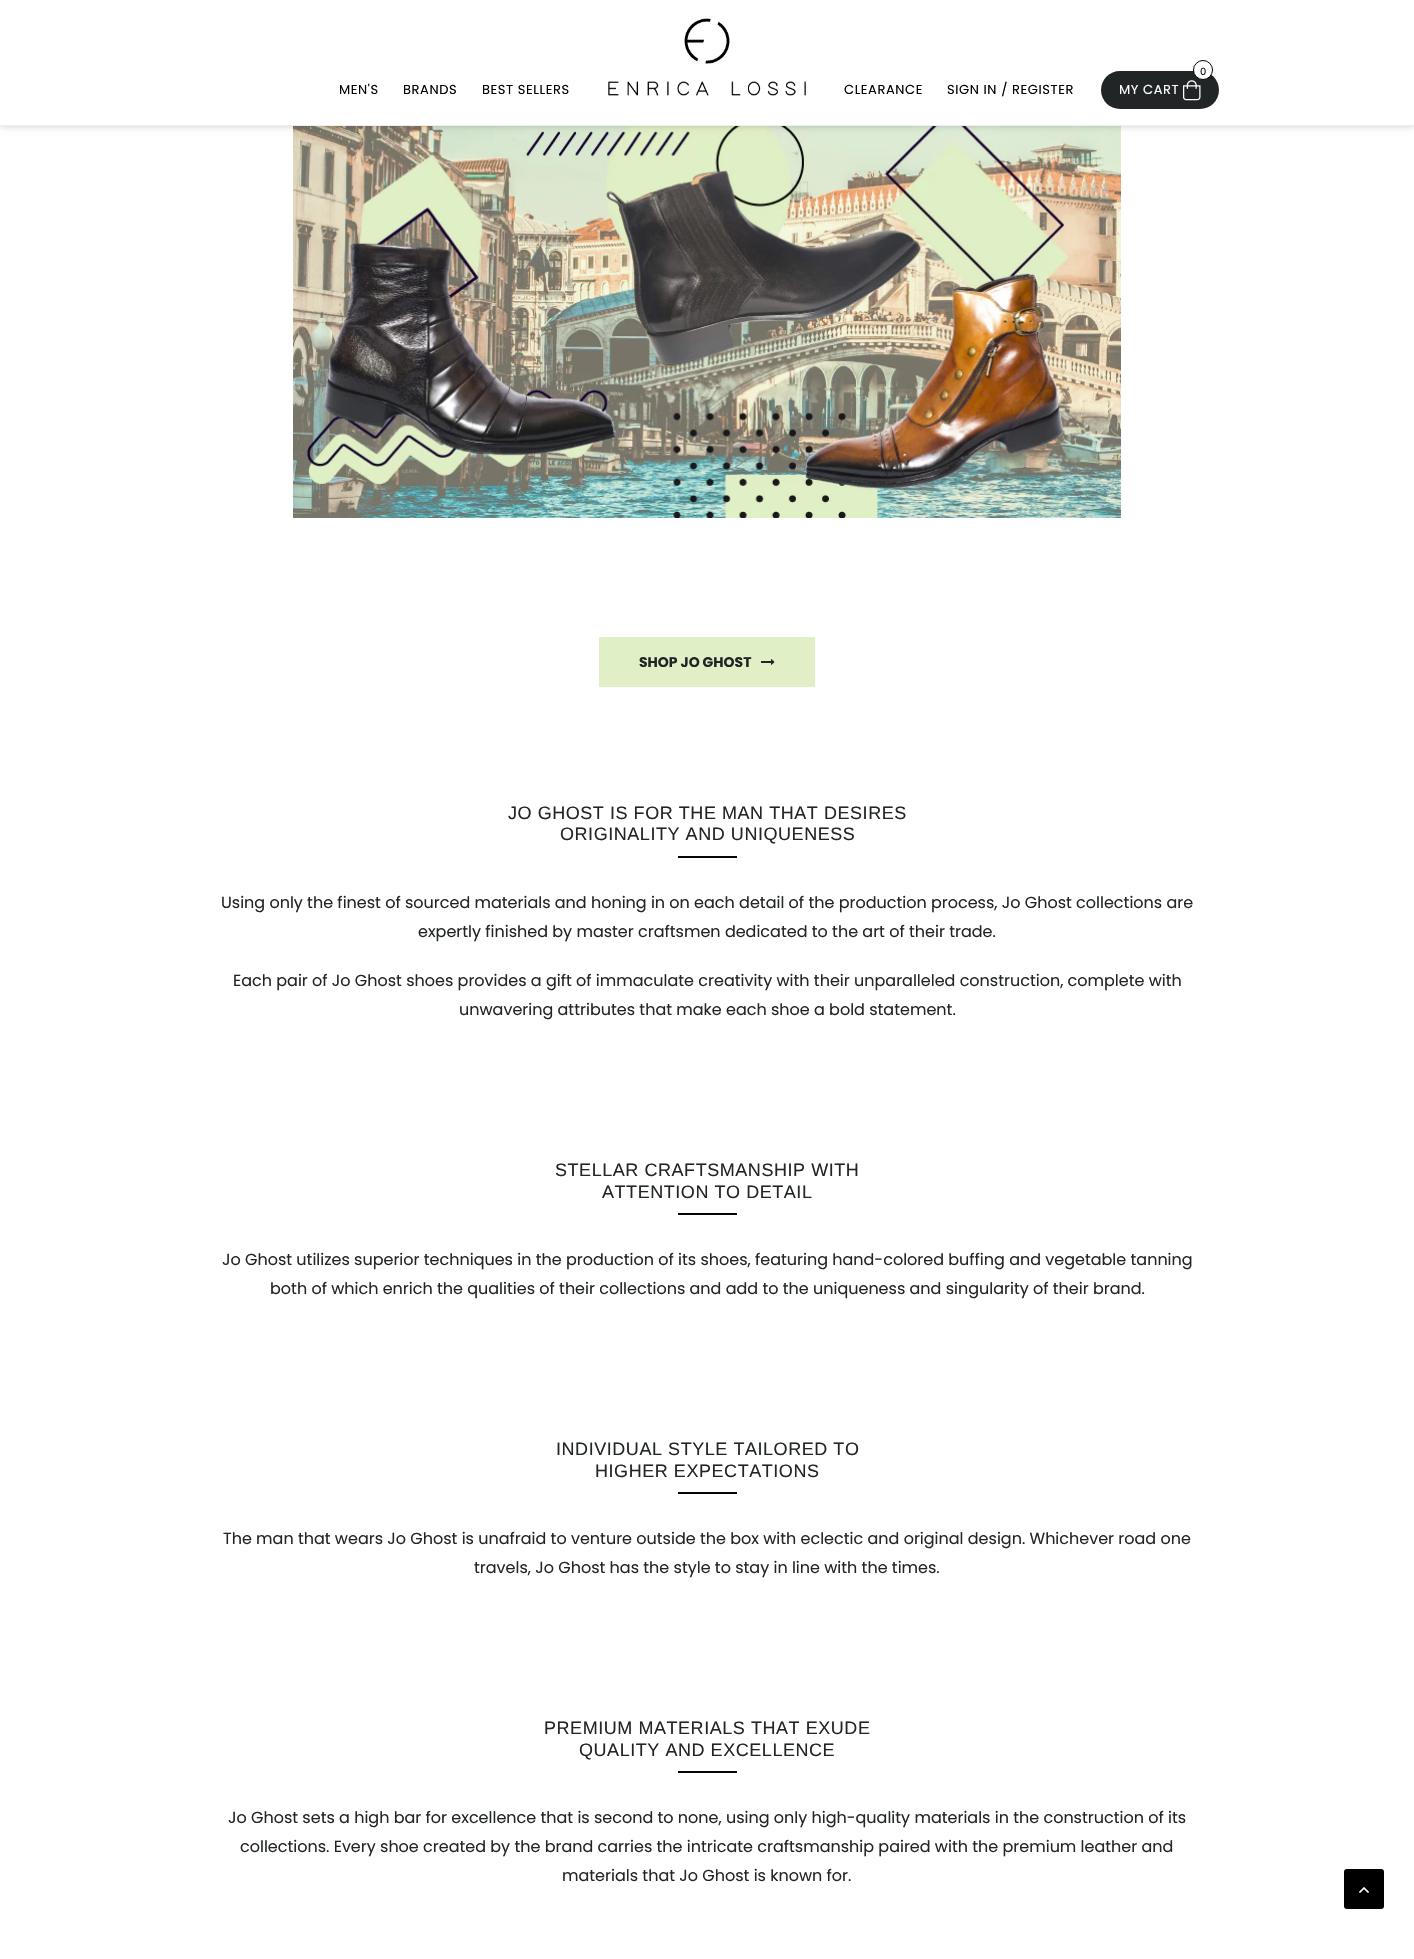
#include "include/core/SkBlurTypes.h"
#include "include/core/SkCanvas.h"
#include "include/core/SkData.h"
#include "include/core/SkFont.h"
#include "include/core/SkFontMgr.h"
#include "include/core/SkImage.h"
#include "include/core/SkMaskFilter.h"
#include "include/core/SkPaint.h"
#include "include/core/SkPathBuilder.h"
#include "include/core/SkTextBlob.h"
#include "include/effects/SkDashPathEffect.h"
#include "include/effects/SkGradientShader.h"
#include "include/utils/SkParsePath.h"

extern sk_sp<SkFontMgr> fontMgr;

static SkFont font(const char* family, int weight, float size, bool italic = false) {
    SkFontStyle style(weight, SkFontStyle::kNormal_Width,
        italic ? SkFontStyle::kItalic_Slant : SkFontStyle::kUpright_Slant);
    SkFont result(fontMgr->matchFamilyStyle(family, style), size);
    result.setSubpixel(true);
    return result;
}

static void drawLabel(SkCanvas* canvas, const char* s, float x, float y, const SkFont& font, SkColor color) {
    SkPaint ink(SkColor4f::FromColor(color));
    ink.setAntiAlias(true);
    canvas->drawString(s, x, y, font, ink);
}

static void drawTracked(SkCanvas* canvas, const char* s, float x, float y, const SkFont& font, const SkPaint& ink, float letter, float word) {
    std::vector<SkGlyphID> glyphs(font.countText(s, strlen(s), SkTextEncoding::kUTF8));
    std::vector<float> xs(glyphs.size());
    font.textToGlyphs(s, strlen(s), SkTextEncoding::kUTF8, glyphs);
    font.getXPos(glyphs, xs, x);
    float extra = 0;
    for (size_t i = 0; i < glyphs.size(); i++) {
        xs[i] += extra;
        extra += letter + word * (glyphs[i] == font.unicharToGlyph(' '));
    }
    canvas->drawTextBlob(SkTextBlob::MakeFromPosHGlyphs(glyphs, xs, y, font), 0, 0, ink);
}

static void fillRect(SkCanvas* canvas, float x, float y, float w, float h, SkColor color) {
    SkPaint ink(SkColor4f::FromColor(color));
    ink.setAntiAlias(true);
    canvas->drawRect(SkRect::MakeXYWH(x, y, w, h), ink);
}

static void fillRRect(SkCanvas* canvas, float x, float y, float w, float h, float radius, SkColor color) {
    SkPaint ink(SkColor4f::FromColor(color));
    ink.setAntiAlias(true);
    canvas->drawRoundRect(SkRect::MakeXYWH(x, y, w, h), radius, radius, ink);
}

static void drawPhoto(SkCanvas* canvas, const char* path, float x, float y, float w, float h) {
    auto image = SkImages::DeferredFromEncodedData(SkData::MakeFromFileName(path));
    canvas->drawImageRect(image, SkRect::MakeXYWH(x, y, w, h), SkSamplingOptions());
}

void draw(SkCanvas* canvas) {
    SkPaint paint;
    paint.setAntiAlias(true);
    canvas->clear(0xFFFFFFFF);
    drawPhoto(canvas, "assets/img3.png", 293, 126, 828, 392);
    paint.setColor(0x33000000);
    paint.setMaskFilter(SkMaskFilter::MakeBlur(kNormal_SkBlurStyle, 3.5f));
    canvas->drawRect(SkRect::MakeXYWH(0, 0, 1414, 126), paint);
    paint.setMaskFilter(nullptr);
    fillRect(canvas, 0, 0, 1414, 125, 0xFFFFFFFF);
    fillRect(canvas, 0, 125, 1414, 1, 0xFFEEEEEE);
    SkFont font1 = font("Poppins", 400, 13);
    paint.setColor(0xFF000000);
    drawTracked(canvas, "MEN'S", 339, 94, font1, paint, 0.6f, 0);
    drawTracked(canvas, "BRANDS", 403, 94, font1, paint, 0.6f, 0);
    drawTracked(canvas, "BEST SELLERS", 482, 94, font1, paint, 0.6f, 0);
    drawPhoto(canvas, "assets/img1.png", 608, 18, 198, 78);
    drawTracked(canvas, "CLEARANCE", 844, 94, font1, paint, 0.6f, 0);
    drawTracked(canvas, "SIGN IN / REGISTER", 947, 94, font1, paint, 0.6f, 0);
    fillRRect(canvas, 1101, 71, 118, 38, 19, 0xFF222526);
    paint.setColor(0xFFFFFFFF);
    canvas->drawCircle(1203, 70, 9.5f, paint);
    paint.setStroke(true);
    paint.setStrokeWidth(1);
    paint.setColor(0xFF000000);
    canvas->drawCircle(1203, 70, 9.5f, paint);
    SkFont font2 = font("Poppins", 400, 10);
    paint.setStroke(false);
    drawTracked(canvas, "0", 1200, 75, font2, paint, 0.6f, 0);
    paint.setColor(0xFFFFFFFF);
    drawTracked(canvas, "MY CART", 1119, 94, font1, paint, 0.6f, 0);
    drawPhoto(canvas, "assets/img2.png", 1183, 80, 18, 21);
    fillRect(canvas, 599, 637, 216, 50, 0xFFE0EFC5);
    SkFont font3 = font("Poppins", 700, 14);
    drawLabel(canvas, "SHOP JO GHOST", 639, 667, font3, 0xFF222526);
    drawPhoto(canvas, "assets/img4.png", 761, 659, 14, 6);
    SkFont font4 = font("Liberation Sans", 400, 18);
    paint.setColor(0xFF222526);
    drawTracked(canvas, "JO GHOST IS FOR THE MAN THAT DESIRES", 508, 819, font4, paint, 0.55f, 0);
    drawTracked(canvas, "ORIGINALITY AND UNIQUENESS", 560, 840, font4, paint, 0.55f, 0);
    fillRect(canvas, 678, 856, 59, 2, 0xFF050505);
    SkFont font5 = font("Poppins", 400, 16);
    drawLabel(canvas, "Using only the finest of sourced materials and honing in on each detail of the production process, Jo Ghost collections are", 221, 908, font5, 0xFF222526);
    drawLabel(canvas, "expertly finished by master craftsmen dedicated to the art of their trade.", 418, 937, font5, 0xFF222526);
    drawLabel(canvas, "Each pair of Jo Ghost shoes provides a gift of immaculate creativity with their unparalleled construction, complete with", 233, 986, font5, 0xFF222526);
    drawLabel(canvas, "unwavering attributes that make each shoe a bold statement.", 459, 1015, font5, 0xFF222526);
    drawTracked(canvas, "STELLAR CRAFTSMANSHIP WITH", 555, 1176, font4, paint, 0.55f, 0);
    drawTracked(canvas, "ATTENTION TO DETAIL", 602, 1198, font4, paint, 0.55f, 0);
    fillRect(canvas, 678, 1213, 59, 2, 0xFF050505);
    drawLabel(canvas, "Jo Ghost utilizes superior techniques in the production of its shoes, featuring hand-colored buffing and vegetable tanning", 222, 1265, font5, 0xFF222526);
    drawLabel(canvas, "both of which enrich the qualities of their collections and add to the uniqueness and singularity of their brand.", 270, 1294, font5, 0xFF222526);
    drawTracked(canvas, "INDIVIDUAL STYLE TAILORED TO", 556, 1455, font4, paint, 0.55f, 0);
    drawTracked(canvas, "HIGHER EXPECTATIONS", 595, 1477, font4, paint, 0.55f, 0);
    fillRect(canvas, 678, 1492, 59, 2, 0xFF050505);
    drawLabel(canvas, "The man that wears Jo Ghost is unafraid to venture outside the box with eclectic and original design. Whichever road one", 223, 1544, font5, 0xFF222526);
    drawLabel(canvas, "travels, Jo Ghost has the style to stay in line with the times.", 474, 1573, font5, 0xFF222526);
    drawTracked(canvas, "PREMIUM MATERIALS THAT EXUDE", 544, 1734, font4, paint, 0.55f, 0);
    drawTracked(canvas, "QUALITY AND EXCELLENCE", 579, 1756, font4, paint, 0.55f, 0);
    fillRect(canvas, 678, 1771, 59, 2, 0xFF050505);
    drawLabel(canvas, "Jo Ghost sets a high bar for excellence that is second to none, using only high-quality materials in the construction of its", 228, 1823, font5, 0xFF222526);
    drawLabel(canvas, "collections. Every shoe created by the brand carries the intricate craftsmanship paired with the premium leather and", 240, 1852, font5, 0xFF222526);
    drawLabel(canvas, "materials that Jo Ghost is known for.", 562, 1881, font5, 0xFF222526);
    fillRRect(canvas, 1344, 1869, 40, 40, 3, 0xFF000000);
    drawPhoto(canvas, "assets/img5.png", 1359, 1887, 10, 6);
}
